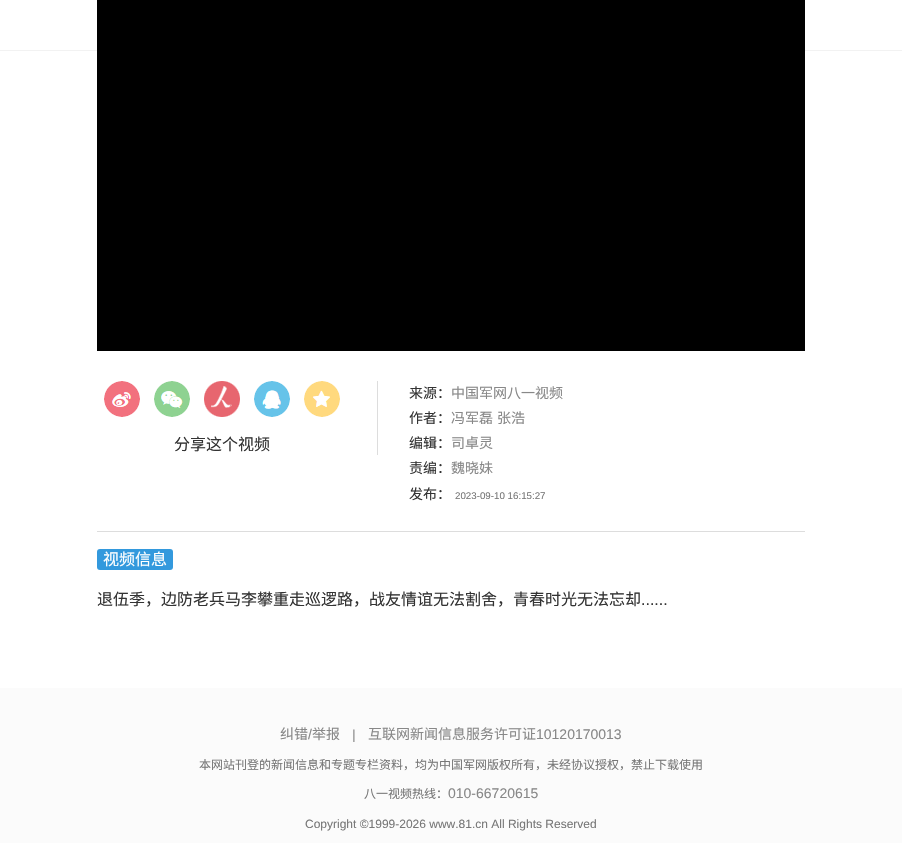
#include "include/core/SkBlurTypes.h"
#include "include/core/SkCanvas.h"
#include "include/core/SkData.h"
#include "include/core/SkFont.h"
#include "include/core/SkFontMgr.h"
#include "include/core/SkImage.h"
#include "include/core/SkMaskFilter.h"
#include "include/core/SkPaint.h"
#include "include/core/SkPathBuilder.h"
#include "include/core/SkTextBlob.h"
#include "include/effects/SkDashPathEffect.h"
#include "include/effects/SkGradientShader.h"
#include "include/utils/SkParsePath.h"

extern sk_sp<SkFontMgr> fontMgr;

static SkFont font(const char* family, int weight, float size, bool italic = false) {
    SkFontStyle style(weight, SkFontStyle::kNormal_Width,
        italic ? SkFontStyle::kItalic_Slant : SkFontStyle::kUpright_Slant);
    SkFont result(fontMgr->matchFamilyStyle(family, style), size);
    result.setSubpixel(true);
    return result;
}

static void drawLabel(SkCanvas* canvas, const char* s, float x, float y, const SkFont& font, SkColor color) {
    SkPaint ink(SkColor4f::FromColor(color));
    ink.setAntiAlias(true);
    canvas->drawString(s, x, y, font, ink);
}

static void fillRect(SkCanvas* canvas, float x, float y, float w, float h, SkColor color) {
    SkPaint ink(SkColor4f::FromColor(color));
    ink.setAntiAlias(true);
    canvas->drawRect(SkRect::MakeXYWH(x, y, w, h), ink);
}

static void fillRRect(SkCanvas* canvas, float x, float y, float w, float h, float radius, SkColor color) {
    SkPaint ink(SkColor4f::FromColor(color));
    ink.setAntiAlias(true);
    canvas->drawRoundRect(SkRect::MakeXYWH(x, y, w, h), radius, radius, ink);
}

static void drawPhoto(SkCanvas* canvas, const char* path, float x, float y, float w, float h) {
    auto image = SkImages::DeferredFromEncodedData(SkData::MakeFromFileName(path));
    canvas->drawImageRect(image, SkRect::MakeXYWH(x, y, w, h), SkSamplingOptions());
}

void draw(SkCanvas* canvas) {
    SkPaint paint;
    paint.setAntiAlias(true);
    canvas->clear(0xFFFFFFFF);
    fillRect(canvas, 0, 50, 902, 1, 0xFFF2F2F2);
    fillRect(canvas, 97, 0, 708, 351, 0xFF000000);
    fillRect(canvas, 377, 381, 1, 74, 0xFFDDDDDD);
    drawPhoto(canvas, "assets/img1.png", 104, 381, 36, 36);
    drawPhoto(canvas, "assets/img2.png", 154, 381, 36, 36);
    drawPhoto(canvas, "assets/img3.png", 204, 381, 36, 36);
    drawPhoto(canvas, "assets/img4.png", 254, 381, 36, 36);
    drawPhoto(canvas, "assets/img5.png", 304, 381, 36, 36);
    SkFont font1 = font("Noto Sans CJK SC", 400, 16);
    drawLabel(canvas, "分享这个视频", 174, 450, font1, 0xFF333333);
    SkFont font2 = font("Noto Sans CJK SC", 400, 14);
    drawLabel(canvas, "来源：", 409, 398, font2, 0xFF333333);
    drawLabel(canvas, "中国军网八一视频", 451, 398, font2, 0xFF888888);
    drawLabel(canvas, "作者：", 409, 423, font2, 0xFF333333);
    drawLabel(canvas, "冯军磊", 451, 423, font2, 0xFF888888);
    drawLabel(canvas, "张浩", 497, 423, font2, 0xFF888888);
    drawLabel(canvas, "编辑：", 409, 448, font2, 0xFF333333);
    drawLabel(canvas, "司卓灵", 451, 448, font2, 0xFF888888);
    drawLabel(canvas, "责编：", 409, 473, font2, 0xFF333333);
    drawLabel(canvas, "魏晓妹", 451, 473, font2, 0xFF888888);
    drawLabel(canvas, "发布：", 409, 499, font2, 0xFF333333);
    SkFont font3 = font("Liberation Sans", 400, 9.75f);
    drawLabel(canvas, "2023-09-10 16:15:27", 455, 499, font3, 0xFF777777);
    fillRect(canvas, 97, 531, 708, 1, 0xFFDDDDDD);
    fillRRect(canvas, 97, 549, 76, 21, 3, 0xFF3399DD);
    drawLabel(canvas, "视频信息", 103, 565, font1, 0xFFFFFFFF);
    drawLabel(canvas, "退伍季，边防老兵马李攀重走巡逻路，战友情谊无法割舍，青春时光无法忘却", 97, 605, font1, 0xFF333333);
    SkFont font4 = font("Liberation Sans", 400, 16);
    drawLabel(canvas, "......", 641, 605, font4, 0xFF333333);
    fillRect(canvas, 0, 688, 902, 155, 0xFFFBFBFB);
    drawLabel(canvas, "纠错", 280, 739, font2, 0xFF888888);
    SkFont font5 = font("Liberation Sans", 400, 14);
    drawLabel(canvas, "/", 308, 739, font5, 0xFF888888);
    drawLabel(canvas, "举报", 312, 739, font2, 0xFF888888);
    SkFont font6 = font("Liberation Sans", 400, 13, true);
    drawLabel(canvas, "|", 352, 739, font6, 0xFF888888);
    drawLabel(canvas, "互联网新闻信息服务许可证", 368, 739, font2, 0xFF888888);
    drawLabel(canvas, "10120170013", 536, 739, font5, 0xFF888888);
    SkFont font7 = font("Noto Sans CJK SC", 400, 12);
    drawLabel(canvas, "本网站刊登的新闻信息和专题专栏资料，均为中国军网版权所有，未经协议授权，禁止下载使用", 199, 769, font7, 0xFF777777);
    drawLabel(canvas, "八一视频热线：", 364, 798, font7, 0xFF777777);
    drawLabel(canvas, "010-66720615", 448, 798, font5, 0xFF888888);
    SkFont font8 = font("Liberation Sans", 400, 12);
    drawLabel(canvas, "Copyright ©1999-2026 www.81.cn All Rights Reserved", 305, 828, font8, 0xFF777777);
}
